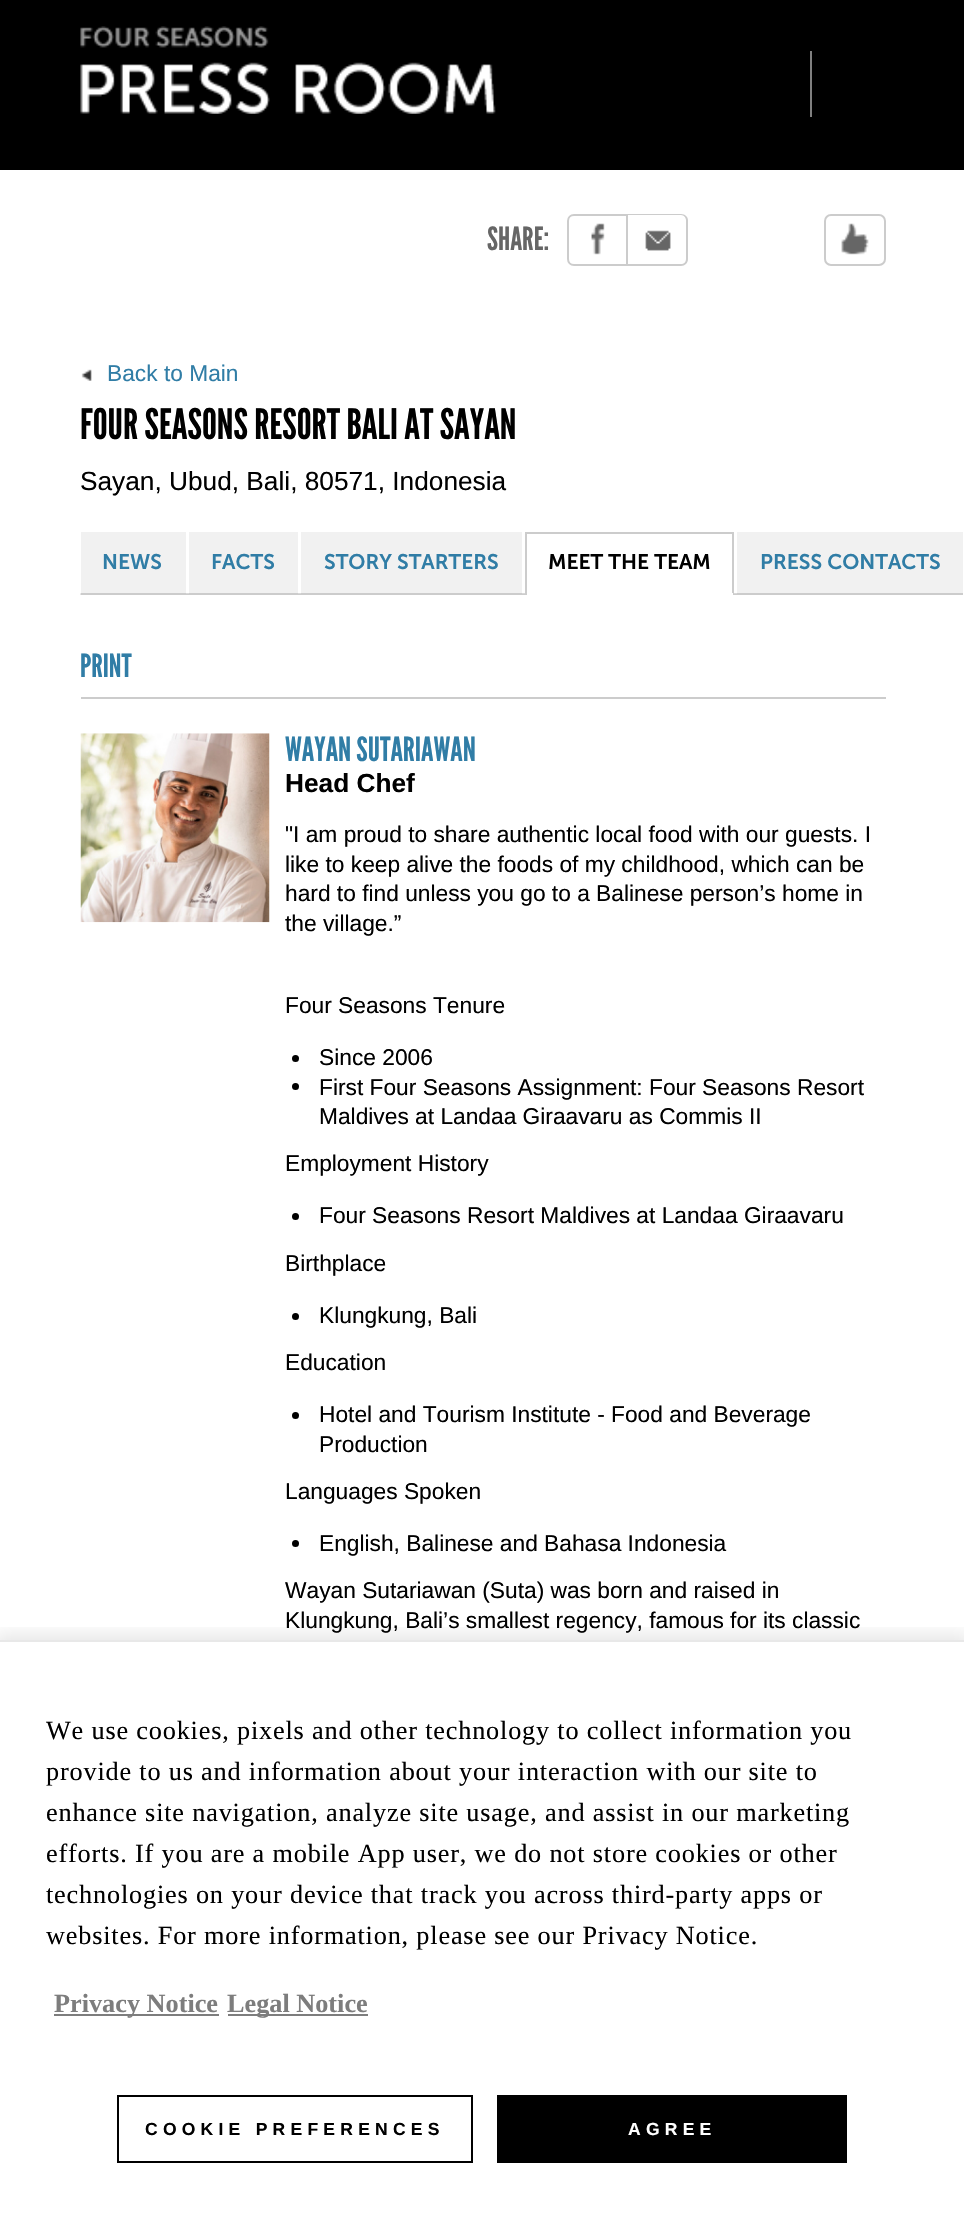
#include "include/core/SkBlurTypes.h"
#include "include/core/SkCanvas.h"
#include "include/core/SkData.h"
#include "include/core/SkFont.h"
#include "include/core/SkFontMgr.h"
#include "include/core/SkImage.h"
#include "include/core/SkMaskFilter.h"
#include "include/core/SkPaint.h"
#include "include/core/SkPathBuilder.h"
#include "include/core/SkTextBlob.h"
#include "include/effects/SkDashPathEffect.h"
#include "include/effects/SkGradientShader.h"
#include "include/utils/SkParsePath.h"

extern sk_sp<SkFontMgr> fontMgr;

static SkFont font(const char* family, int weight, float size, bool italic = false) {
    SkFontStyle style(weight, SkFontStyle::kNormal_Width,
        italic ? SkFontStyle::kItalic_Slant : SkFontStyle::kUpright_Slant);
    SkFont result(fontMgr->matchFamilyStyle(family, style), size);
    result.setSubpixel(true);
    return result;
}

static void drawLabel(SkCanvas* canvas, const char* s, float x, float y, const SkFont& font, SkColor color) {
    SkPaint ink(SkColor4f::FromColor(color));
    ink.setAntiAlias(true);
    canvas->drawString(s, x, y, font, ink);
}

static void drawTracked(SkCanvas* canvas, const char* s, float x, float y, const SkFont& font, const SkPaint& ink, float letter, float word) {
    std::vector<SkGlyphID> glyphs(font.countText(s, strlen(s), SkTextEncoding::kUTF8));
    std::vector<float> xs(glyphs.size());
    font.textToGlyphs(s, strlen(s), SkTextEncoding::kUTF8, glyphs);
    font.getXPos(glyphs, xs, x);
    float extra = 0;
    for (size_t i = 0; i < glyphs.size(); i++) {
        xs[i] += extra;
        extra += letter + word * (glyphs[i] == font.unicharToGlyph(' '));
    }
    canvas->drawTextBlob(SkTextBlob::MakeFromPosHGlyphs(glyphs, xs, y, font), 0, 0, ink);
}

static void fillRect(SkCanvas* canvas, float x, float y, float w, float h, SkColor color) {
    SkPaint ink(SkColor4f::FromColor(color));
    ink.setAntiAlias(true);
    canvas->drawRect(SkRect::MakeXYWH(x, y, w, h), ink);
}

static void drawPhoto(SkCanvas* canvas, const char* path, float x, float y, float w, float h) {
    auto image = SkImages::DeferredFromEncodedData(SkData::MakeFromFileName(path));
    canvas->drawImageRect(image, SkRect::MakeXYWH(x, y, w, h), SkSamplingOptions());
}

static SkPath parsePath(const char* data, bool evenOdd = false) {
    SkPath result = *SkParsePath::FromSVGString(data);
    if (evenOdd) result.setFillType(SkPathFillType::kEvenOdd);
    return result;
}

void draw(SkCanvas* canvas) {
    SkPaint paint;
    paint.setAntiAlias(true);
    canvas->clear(0xFFFFFFFF);
    fillRect(canvas, 0, 0, 964, 170, 0xFF000000);
    drawPhoto(canvas, "assets/img1.png", 80, 26, 416, 88);
    fillRect(canvas, 810, 51, 2, 66, 0xFF808080);
    SkFont font1 = font("League Gothic", 400, 32);
    drawLabel(canvas, "SHARE:", 487, 250, font1, 0xFF666666);
    drawPhoto(canvas, "assets/img2.png", 591, 223, 14, 32);
    paint.setStroke(true);
    paint.setStrokeWidth(2);
    paint.setColor(0xFFCCCCCC);
    canvas->drawPath(parsePath("M574 215H627V265H574C570.5 265 568 262.5 568 259V221C568 217.5 570.5 215 574 215Z"), paint);
    drawPhoto(canvas, "assets/img3.png", 645, 230, 26, 21);
    paint.setStroke(false);
    canvas->drawPath(parsePath("M628 214H681C685 214 688 217 688 220V259C688 263 685 266 681 266H628ZM628 215H681C684 215 686 218 686 220V259C686 262 684 264 681 264H628Z", true), paint);
    paint.setStroke(true);
    canvas->drawRoundRect(SkRect::MakeXYWH(825, 215, 60, 50), 6, 6, paint);
    drawPhoto(canvas, "assets/img4.png", 841, 223, 28, 32);
    drawPhoto(canvas, "assets/img5.png", 81, 369, 11, 12);
    SkFont font2 = font("Liberation Sans", 400, 22.75f);
    drawLabel(canvas, "Back to Main", 107, 381, font2, 0xFF307DA6);
    SkFont font3 = font("League Gothic", 400, 42);
    drawLabel(canvas, "FOUR SEASONS RESORT BALI AT SAYAN", 80, 439, font3, 0xFF000000);
    SkFont font4 = font("Liberation Sans", 400, 26.25f);
    drawLabel(canvas, "Sayan, Ubud, Bali, 80571, Indonesia", 80, 490, font4, 0xFF000000);
    drawPhoto(canvas, "assets/img6.png", 80, 593, 657, 2);
    fillRect(canvas, 81, 532, 105, 61, 0xFFF1F1F1);
    fillRect(canvas, 81, 593, 105, 1, 0xFFCCCCCC);
    SkFont font5 = font("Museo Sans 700", 600, 21);
    drawLabel(canvas, "NEWS", 102, 569, font5, 0xFF307DA6);
    fillRect(canvas, 189, 532, 109, 61, 0xFFF1F1F1);
    fillRect(canvas, 189, 593, 109, 1, 0xFFCCCCCC);
    drawLabel(canvas, "FACTS", 211, 569, font5, 0xFF307DA6);
    fillRect(canvas, 301, 532, 221, 61, 0xFFF1F1F1);
    fillRect(canvas, 301, 593, 221, 1, 0xFFCCCCCC);
    drawLabel(canvas, "STORY STARTERS", 324, 569, font5, 0xFF307DA6);
    fillRect(canvas, 525, 532, 208, 2, 0xFFCCCCCC);
    fillRect(canvas, 732, 532, 2, 63, 0xFFCCCCCC);
    fillRect(canvas, 525, 593, 208, 2, 0xFFFFFFFF);
    fillRect(canvas, 525, 532, 2, 63, 0xFFCCCCCC);
    drawLabel(canvas, "MEET THE TEAM", 548, 569, font5, 0xFF000000);
    fillRect(canvas, 737, 532, 226, 61, 0xFFF1F1F1);
    fillRect(canvas, 737, 593, 226, 2, 0xFFCCCCCC);
    drawLabel(canvas, "PRESS CONTACTS", 760, 569, font5, 0xFF307DA6);
    fillRect(canvas, 81, 697, 805, 2, 0xFFCCCCCC);
    drawLabel(canvas, "PRINT", 80, 677, font1, 0xFF307DA6);
    drawPhoto(canvas, "assets/img7.png", 80, 733, 190, 190);
    SkFont font6 = font("League Gothic", 400, 33.25f);
    drawLabel(canvas, "WAYAN SUTARIAWAN", 285, 761, font6, 0xFF307DA6);
    SkFont font7 = font("Liberation Sans", 700, 26.25f);
    drawLabel(canvas, "Head Chef", 285, 792, font7, 0xFF000000);
    drawLabel(canvas, "\"I am proud to share authentic local food with our guests. I", 285, 842, font2, 0xFF000000);
    drawLabel(canvas, "like to keep alive the foods of my childhood, which can be", 285, 872, font2, 0xFF000000);
    drawLabel(canvas, "hard to find unless you go to a Balinese person’s home in", 285, 901, font2, 0xFF000000);
    drawLabel(canvas, "the village.”", 285, 931, font2, 0xFF000000);
    drawLabel(canvas, "Four Seasons Tenure", 285, 1013, font2, 0xFF000000);
    paint.setStroke(false);
    paint.setColor(0xFF000000);
    canvas->drawCircle(295.5f, 1058.5f, 3.5f, paint);
    drawLabel(canvas, "Since 2006", 319, 1065, font2, 0xFF000000);
    canvas->drawCircle(295.5f, 1086.5f, 3.5f, paint);
    drawLabel(canvas, "First Four Seasons Assignment: Four Seasons Resort", 319, 1095, font2, 0xFF000000);
    drawLabel(canvas, "Maldives at Landaa Giraavaru as Commis II", 319, 1124, font2, 0xFF000000);
    drawLabel(canvas, "Employment History", 285, 1171, font2, 0xFF000000);
    canvas->drawCircle(295.5f, 1216.5f, 3.5f, paint);
    drawLabel(canvas, "Four Seasons Resort Maldives at Landaa Giraavaru", 319, 1223, font2, 0xFF000000);
    drawLabel(canvas, "Birthplace", 285, 1271, font2, 0xFF000000);
    canvas->drawCircle(295.5f, 1316.5f, 3.5f, paint);
    drawLabel(canvas, "Klungkung, Bali", 319, 1323, font2, 0xFF000000);
    drawLabel(canvas, "Education", 285, 1370, font2, 0xFF000000);
    canvas->drawCircle(295.5f, 1415.5f, 3.5f, paint);
    drawLabel(canvas, "Hotel and Tourism Institute - Food and Beverage", 319, 1422, font2, 0xFF000000);
    drawLabel(canvas, "Production", 319, 1452, font2, 0xFF000000);
    drawLabel(canvas, "Languages Spoken", 285, 1499, font2, 0xFF000000);
    canvas->drawCircle(295.5f, 1543.5f, 3.5f, paint);
    drawLabel(canvas, "English, Balinese and Bahasa Indonesia", 319, 1551, font2, 0xFF000000);
    drawLabel(canvas, "Wayan Sutariawan (Suta) was born and raised in", 285, 1598, font2, 0xFF000000);
    drawLabel(canvas, "Klungkung, Bali’s smallest regency, famous for its classic", 285, 1628, font2, 0xFF000000);
    canvas->save();
    canvas->clipRect(SkRect::MakeXYWH(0, 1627, 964, 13));
    paint.setColor(0x1A000000);
    paint.setMaskFilter(SkMaskFilter::MakeBlur(kNormal_SkBlurStyle, 9));
    canvas->drawRect(SkRect::MakeXYWH(-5, 1635, 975, 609), paint);
    paint.setMaskFilter(nullptr);
    canvas->restore();
    fillRect(canvas, 0, 1640, 964, 2, 0xFFE8E8E8);
    SkFont font8 = font("Liberation Serif", 400, 26.25f);
    paint.setColor(0xFF000000);
    drawTracked(canvas, "We use cookies, pixels and other technology to collect information you", 46, 1739, font8, paint, 0.82f, 0);
    drawTracked(canvas, "provide to us and information about your interaction with our site to", 46, 1780, font8, paint, 0.82f, 0);
    drawTracked(canvas, "enhance site navigation, analyze site usage, and assist in our marketing", 46, 1821, font8, paint, 0.82f, 0);
    drawTracked(canvas, "efforts. If you are a mobile App user, we do not store cookies or other", 46, 1862, font8, paint, 0.82f, 0);
    drawTracked(canvas, "technologies on your device that track you across third-party apps or", 46, 1903, font8, paint, 0.82f, 0);
    drawTracked(canvas, "websites. For more information, please see our Privacy Notice.", 46, 1944, font8, paint, 0.82f, 0);
    fillRect(canvas, 54, 2014, 165, 2, 0xFF7D7D7D);
    SkFont font9 = font("Liberation Serif", 700, 26.25f);
    drawLabel(canvas, "Privacy Notice", 54, 2012, font9, 0xFF7D7D7D);
    fillRect(canvas, 228, 2014, 140, 2, 0xFF7D7D7D);
    drawLabel(canvas, "Legal Notice", 227, 2012, font9, 0xFF7D7D7D);
    paint.setStroke(true);
    canvas->drawRect(SkRect::MakeXYWH(118, 2096, 354, 66), paint);
    SkFont font10 = font("Liberation Sans", 700, 17.5f);
    paint.setStroke(false);
    drawTracked(canvas, "COOKIE PREFERENCES", 145, 2135, font10, paint, 5.25f, 0);
    fillRect(canvas, 497, 2095, 350, 68, 0xFF000000);
    paint.setColor(0xFFFFFFFF);
    drawTracked(canvas, "AGREE", 628, 2135, font10, paint, 5.25f, 0);
}
